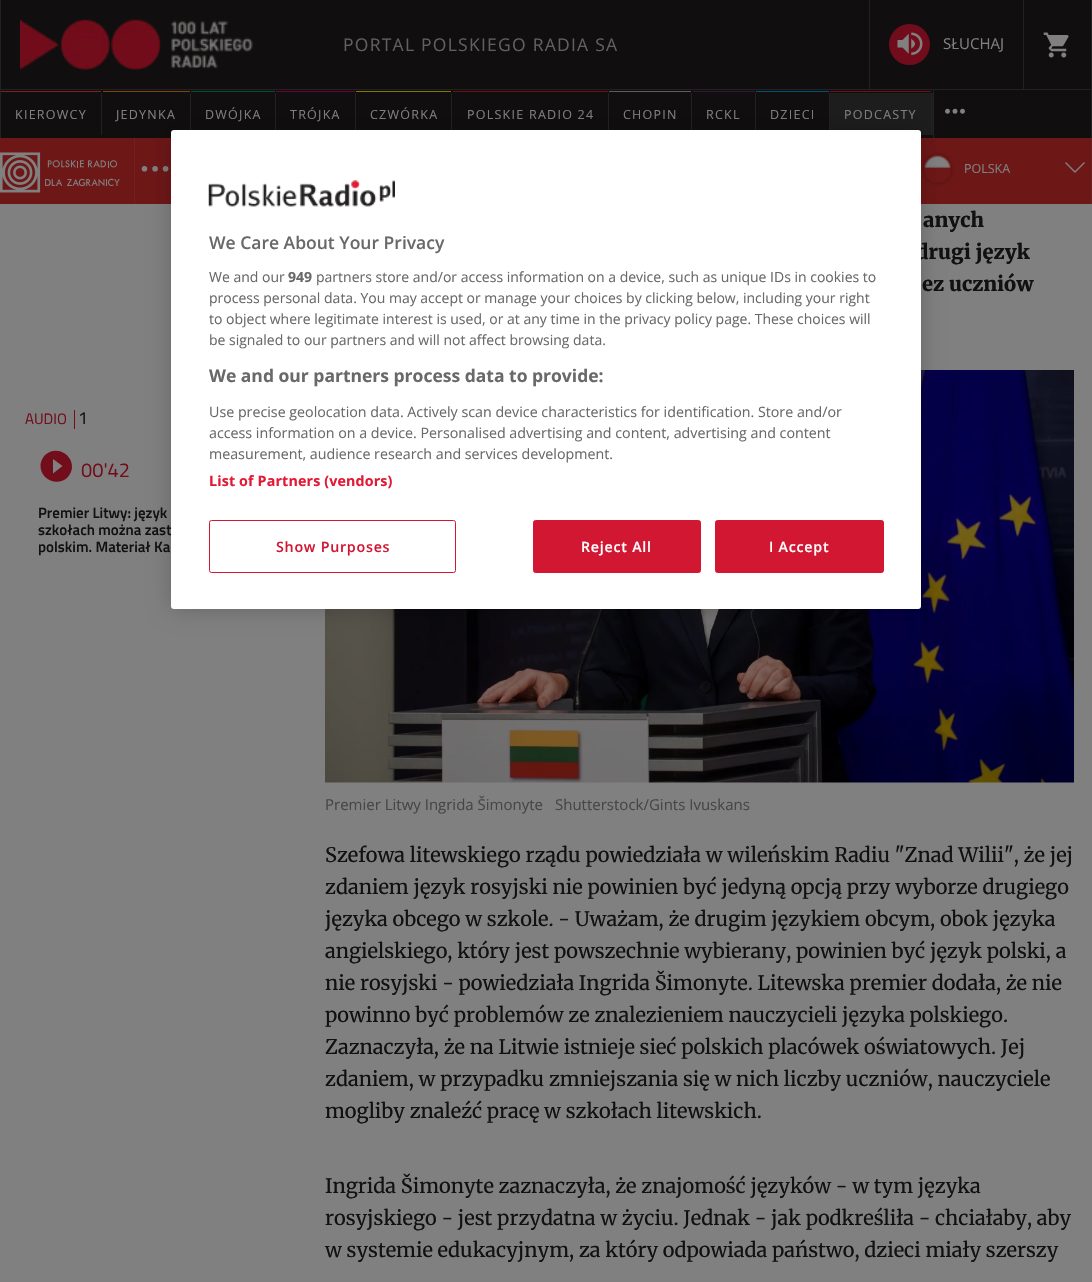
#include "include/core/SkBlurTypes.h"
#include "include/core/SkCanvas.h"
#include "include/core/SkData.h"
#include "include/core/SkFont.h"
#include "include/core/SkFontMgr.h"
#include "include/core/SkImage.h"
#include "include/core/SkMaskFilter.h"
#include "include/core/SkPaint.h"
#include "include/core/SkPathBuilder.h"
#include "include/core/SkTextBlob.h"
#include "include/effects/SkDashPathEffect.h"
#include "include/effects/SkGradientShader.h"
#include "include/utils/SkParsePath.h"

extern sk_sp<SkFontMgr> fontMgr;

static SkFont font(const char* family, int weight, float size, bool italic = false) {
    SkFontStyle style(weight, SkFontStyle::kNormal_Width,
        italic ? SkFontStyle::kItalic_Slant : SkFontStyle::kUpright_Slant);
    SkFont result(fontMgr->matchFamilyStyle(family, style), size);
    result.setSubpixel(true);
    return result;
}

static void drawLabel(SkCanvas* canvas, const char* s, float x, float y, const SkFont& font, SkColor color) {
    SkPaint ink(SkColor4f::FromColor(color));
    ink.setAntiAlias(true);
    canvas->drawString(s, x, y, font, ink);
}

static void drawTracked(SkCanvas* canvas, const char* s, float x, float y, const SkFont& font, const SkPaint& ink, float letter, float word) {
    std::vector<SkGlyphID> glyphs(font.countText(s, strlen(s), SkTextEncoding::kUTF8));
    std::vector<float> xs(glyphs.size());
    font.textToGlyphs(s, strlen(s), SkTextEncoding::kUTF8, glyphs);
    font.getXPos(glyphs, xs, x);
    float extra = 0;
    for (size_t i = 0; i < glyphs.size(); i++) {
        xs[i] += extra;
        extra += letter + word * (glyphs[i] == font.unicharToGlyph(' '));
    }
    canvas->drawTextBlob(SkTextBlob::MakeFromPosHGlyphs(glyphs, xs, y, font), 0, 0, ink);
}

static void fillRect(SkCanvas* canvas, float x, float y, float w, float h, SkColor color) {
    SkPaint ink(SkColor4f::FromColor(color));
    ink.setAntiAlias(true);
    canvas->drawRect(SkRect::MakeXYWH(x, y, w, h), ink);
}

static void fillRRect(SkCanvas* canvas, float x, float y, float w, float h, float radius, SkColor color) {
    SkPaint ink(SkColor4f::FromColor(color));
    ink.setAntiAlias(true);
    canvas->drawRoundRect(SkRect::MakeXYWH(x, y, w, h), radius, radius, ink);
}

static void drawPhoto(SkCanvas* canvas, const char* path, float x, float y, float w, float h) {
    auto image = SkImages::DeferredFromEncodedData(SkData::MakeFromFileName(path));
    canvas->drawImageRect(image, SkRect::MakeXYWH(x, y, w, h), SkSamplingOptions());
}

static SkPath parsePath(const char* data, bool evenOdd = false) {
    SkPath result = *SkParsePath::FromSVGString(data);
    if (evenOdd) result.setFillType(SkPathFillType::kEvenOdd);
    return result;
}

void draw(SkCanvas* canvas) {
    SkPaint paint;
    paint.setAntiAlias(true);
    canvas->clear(0xFF808080);
    fillRect(canvas, 1, 0, 1090, 138, 0xFF100E0E);
    fillRect(canvas, 0, 89, 1092, 1, 0xFF222222);
    fillRect(canvas, 1091, 0, 1, 89, 0xFF222222);
    fillRect(canvas, 0, 0, 1, 89, 0xFF222222);
    drawPhoto(canvas, "assets/img1.png", 20, 18, 234, 52);
    SkFont font1 = font("Open Sans", 400, 17.5f);
    paint.setColor(0xFF606060);
    drawTracked(canvas, "PORTAL POLSKIEGO RADIA SA", 343, 51, font1, paint, 1.25f, 0);
    fillRect(canvas, 1023, 0, 1, 89, 0xFF222222);
    fillRect(canvas, 869, 0, 1, 89, 0xFF222222);
    paint.setColor(0xFF710C1C);
    canvas->drawCircle(909.5f, 44.5f, 20.5f, paint);
    drawPhoto(canvas, "assets/img2.png", 897, 32, 26, 23);
    SkFont font2 = font("Open Sans", 400, 15);
    drawLabel(canvas, "SŁUCHAJ", 943, 49, font2, 0xFF808080);
    drawPhoto(canvas, "assets/img3.png", 1043, 32, 26, 26);
    fillRect(canvas, 1091, 90, 1, 48, 0xFF222222);
    fillRect(canvas, 0, 90, 1, 48, 0xFF222222);
    fillRect(canvas, 101, 93, 1, 42, 0xFF222222);
    fillRect(canvas, 1, 91, 100, 1, 0xFF7A2320);
    SkFont font3 = font("Open Sans", 400, 12.5f);
    paint.setColor(0xFF808080);
    drawTracked(canvas, "KIEROWCY", 15, 119, font3, paint, 1.25f, 0);
    fillRect(canvas, 190, 93, 1, 42, 0xFF222222);
    fillRect(canvas, 103, 91, 87, 1, 0xFF7B470F);
    drawTracked(canvas, "JEDYNKA", 116, 119, font3, paint, 1.25f, 0);
    fillRect(canvas, 275, 93, 1, 42, 0xFF222222);
    fillRect(canvas, 191, 91, 84, 1, 0xFF004F31);
    drawTracked(canvas, "DWÓJKA", 205, 119, font3, paint, 1.25f, 0);
    fillRect(canvas, 355, 93, 1, 42, 0xFF222222);
    fillRect(canvas, 276, 91, 79, 1, 0xFF6C0239);
    drawTracked(canvas, "TRÓJKA", 290, 119, font3, paint, 1.25f, 0);
    fillRect(canvas, 451, 93, 1, 42, 0xFF222222);
    fillRect(canvas, 356, 91, 95, 1, 0xFF807A01);
    drawTracked(canvas, "CZWÓRKA", 370, 119, font3, paint, 1.25f, 0);
    fillRect(canvas, 608, 93, 1, 42, 0xFF222222);
    fillRect(canvas, 453, 91, 155, 1, 0xFF720D1B);
    drawTracked(canvas, "POLSKIE RADIO 24", 467, 119, font3, paint, 1.25f, 0);
    fillRect(canvas, 691, 93, 1, 42, 0xFF222222);
    fillRect(canvas, 609, 91, 82, 1, 0xFF5E5E5E);
    drawTracked(canvas, "CHOPIN", 623, 119, font3, paint, 1.25f, 0);
    fillRect(canvas, 755, 93, 1, 42, 0xFF222222);
    fillRect(canvas, 693, 91, 62, 1, 0xFF331933);
    drawTracked(canvas, "RCKL", 706, 119, font3, paint, 1.25f, 0);
    fillRect(canvas, 829, 93, 1, 42, 0xFF222222);
    fillRect(canvas, 756, 91, 73, 1, 0xFF005374);
    drawTracked(canvas, "DZIECI", 770, 119, font3, paint, 1.25f, 0);
    fillRect(canvas, 830, 93, 103, 42, 0xFF1D1D1D);
    fillRect(canvas, 931, 93, 1, 42, 0xFF222222);
    fillRect(canvas, 830, 91, 101, 1, 0xFF720D1B);
    drawTracked(canvas, "PODCASTY", 844, 119, font3, paint, 1.25f, 0);
    fillRect(canvas, 933, 90, 1, 48, 0xFF222222);
    drawPhoto(canvas, "assets/img4.png", 945, 108, 20, 6);
    fillRect(canvas, 0, 138, 1091, 66, 0xFF6E1717);
    fillRect(canvas, 134, 138, 1, 66, 0xFF702222);
    drawPhoto(canvas, "assets/img5.png", 0, 152, 120, 41);
    canvas->drawCircle(144.5f, 168.8f, 2.8f, paint);
    canvas->drawCircle(155.1f, 168.8f, 2.8f, paint);
    canvas->drawCircle(165.6f, 168.8f, 2.8f, paint);
    fillRect(canvas, 1091, 138, 1, 66, 0xFF702222);
    canvas->save();
    canvas->clipPath(parsePath("M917 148H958V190H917ZM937.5 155C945 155 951 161 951 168.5V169.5C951 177 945 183 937.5 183C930 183 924 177 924 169.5V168.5C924 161 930 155 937.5 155Z", true), true);
    paint.setColor(0x4D000000);
    paint.setMaskFilter(SkMaskFilter::MakeBlur(kNormal_SkBlurStyle, 2));
    canvas->drawRoundRect(SkRect::MakeXYWH(924, 155, 27, 28), 13.5f, 13.5f, paint);
    paint.setMaskFilter(nullptr);
    canvas->restore();
    drawPhoto(canvas, "assets/img6.png", 924, 155, 27, 13);
    drawLabel(canvas, "POLSKA", 964, 173, font3, 0xFF808080);
    paint.setStroke(true);
    paint.setStrokeWidth(1.4f);
    paint.setColor(0xFF808080);
    canvas->drawPath(parsePath("M1065.5 162.5L1075 172L1084.5 162.5"), paint);
    SkFont font4 = font("Merriweather", 900, 20);
    drawLabel(canvas, "anych", 923, 227, font4, 0xFF111111);
    drawLabel(canvas, "drugi język", 916, 259, font4, 0xFF111111);
    drawLabel(canvas, "ez uczniów", 922, 291, font4, 0xFF111111);
    fillRect(canvas, 74, 410, 1, 19, 0xFF720D1B);
    SkFont font5 = font("Titillium Web", 400, 15);
    drawLabel(canvas, "AUDIO", 25, 424, font5, 0xFF720D1B);
    SkFont font6 = font("Titillium Web", 400, 17.5f);
    drawLabel(canvas, "1", 78, 424, font6, 0xFF111111);
    paint.setStroke(false);
    paint.setColor(0xFF720D1B);
    canvas->drawPath(parsePath("M53 473.5L62.5 466L53 459ZM45 455C55.5 445 73 453.5 72 468C71.5 471.5 70 474.5 67.5 477.5C57 487.5 39.5 479 40.5 464.5C41 461 42.5 458 45 455Z"), paint);
    SkFont font7 = font("Titillium Web", 400, 20);
    drawLabel(canvas, "00'42", 81, 477, font7, 0xFF720D1B);
    SkFont font8 = font("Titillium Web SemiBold", 600, 15);
    drawLabel(canvas, "Premier Litwy: język", 38, 518, font8, 0xFF111111);
    drawLabel(canvas, "szkołach można zast", 38, 535, font8, 0xFF111111);
    drawLabel(canvas, "polskim. Materiał Ka", 38, 552, font8, 0xFF111111);
    drawPhoto(canvas, "assets/img7.png", 325, 370, 749, 413);
    drawLabel(canvas, "Premier Litwy Ingrida Šimonyte", 325, 810, font2, 0xFF484645);
    drawLabel(canvas, "Shutterstock/Gints Ivuskans", 555, 810, font2, 0xFF484645);
    SkFont font9 = font("Merriweather", 400, 20);
    drawLabel(canvas, "Szefowa litewskiego rządu powiedziała w wileńskim Radiu \"Znad Wilii\", że jej", 325, 862, font9, 0xFF111111);
    drawLabel(canvas, "zdaniem język rosyjski nie powinien być jedyną opcją przy wyborze drugiego", 325, 894, font9, 0xFF111111);
    drawLabel(canvas, "języka obcego w szkole. - Uważam, że drugim językiem obcym, obok języka", 325, 926, font9, 0xFF111111);
    drawLabel(canvas, "angielskiego, który jest powszechnie wybierany, powinien być język polski, a", 325, 958, font9, 0xFF111111);
    drawLabel(canvas, "nie rosyjski - powiedziała Ingrida Šimonyte. Litewska premier dodała, że nie", 325, 990, font9, 0xFF111111);
    drawLabel(canvas, "powinno być problemów ze znalezieniem nauczycieli języka polskiego.", 325, 1022, font9, 0xFF111111);
    drawLabel(canvas, "Zaznaczyła, że na Litwie istnieje sieć polskich placówek oświatowych. Jej", 325, 1054, font9, 0xFF111111);
    drawLabel(canvas, "zdaniem, w przypadku zmniejszania się w nich liczby uczniów, nauczyciele", 325, 1086, font9, 0xFF111111);
    drawLabel(canvas, "mogliby znaleźć pracę w szkołach litewskich.", 325, 1118, font9, 0xFF111111);
    drawLabel(canvas, "Ingrida Šimonyte zaznaczyła, że znajomość języków - w tym języka", 325, 1193, font9, 0xFF111111);
    drawLabel(canvas, "rosyjskiego - jest przydatna w życiu. Jednak - jak podkreśliła - chciałaby, aby", 325, 1225, font9, 0xFF111111);
    drawLabel(canvas, "w systemie edukacyjnym, za który odpowiada państwo, dzieci miały szerszy", 325, 1257, font9, 0xFF111111);
    paint.setColor(0x33000000);
    paint.setMaskFilter(SkMaskFilter::MakeBlur(kNormal_SkBlurStyle, 11));
    canvas->drawRoundRect(SkRect::MakeXYWH(171, 130, 750, 479), 3, 3, paint);
    paint.setMaskFilter(nullptr);
    fillRRect(canvas, 171, 130, 750, 479, 3, 0xFFFFFFFF);
    drawPhoto(canvas, "assets/img8.png", 208, 180, 187, 27);
    SkFont font10 = font("Open Sans", 600, 17.5f);
    drawLabel(canvas, "We Care About Your Privacy", 209, 249, font10, 0xFF696969);
    SkFont font11 = font("Open Sans", 400, 14);
    drawLabel(canvas, "We and our", 209, 282, font11, 0xFF696969);
    SkFont font12 = font("Open Sans", 700, 14);
    drawLabel(canvas, "949", 288, 282, font12, 0xFF696969);
    drawLabel(canvas, "partners store and/or access information on a device, such as unique IDs in cookies to", 316, 282, font11, 0xFF696969);
    drawLabel(canvas, "process personal data. You may accept or manage your choices by clicking below, including your right", 209, 303, font11, 0xFF696969);
    drawLabel(canvas, "to object where legitimate interest is used, or at any time in the privacy policy page. These choices will", 209, 324, font11, 0xFF696969);
    drawLabel(canvas, "be signaled to our partners and will not affect browsing data.", 209, 345, font11, 0xFF696969);
    SkFont font13 = font("Open Sans", 700, 17.5f);
    drawLabel(canvas, "We and our partners process data to provide:", 209, 382, font13, 0xFF696969);
    SkFont font14 = font("Open Sans", 400, 14.25f);
    drawLabel(canvas, "Use precise geolocation data. Actively scan device characteristics for identification. Store and/or", 209, 417, font14, 0xFF696969);
    drawLabel(canvas, "access information on a device. Personalised advertising and content, advertising and content", 209, 438, font14, 0xFF696969);
    drawLabel(canvas, "measurement, audience research and services development.", 209, 459, font14, 0xFF696969);
    SkFont font15 = font("Open Sans", 700, 14.25f);
    paint.setColor(0xFFE31936);
    drawTracked(canvas, "List of Partners (vendors)", 209, 486, font15, paint, 0.15f, 0);
    paint.setStroke(true);
    paint.setStrokeWidth(1);
    paint.setColor(0xFFD21733);
    canvas->drawRoundRect(SkRect::MakeXYWH(209.5f, 520.5f, 246, 52), 2, 2, paint);
    SkFont font16 = font("Open Sans", 600, 14.25f);
    paint.setStroke(false);
    drawTracked(canvas, "Show Purposes", 276, 552, font16, paint, 0.75f, 0);
    canvas->drawRoundRect(SkRect::MakeXYWH(533.5f, 520.5f, 167, 52), 2, 2, paint);
    paint.setStroke(true);
    canvas->drawRoundRect(SkRect::MakeXYWH(533.5f, 520.5f, 167, 52), 2, 2, paint);
    paint.setStroke(false);
    paint.setColor(0xFFFFFFFF);
    drawTracked(canvas, "Reject All", 581, 552, font16, paint, 0.75f, 0);
    paint.setColor(0xFFD21733);
    canvas->drawRoundRect(SkRect::MakeXYWH(715.5f, 520.5f, 168, 52), 2, 2, paint);
    paint.setStroke(true);
    canvas->drawRoundRect(SkRect::MakeXYWH(715.5f, 520.5f, 168, 52), 2, 2, paint);
    paint.setStroke(false);
    paint.setColor(0xFFFFFFFF);
    drawTracked(canvas, "I Accept", 769, 552, font16, paint, 0.75f, 0);
}
